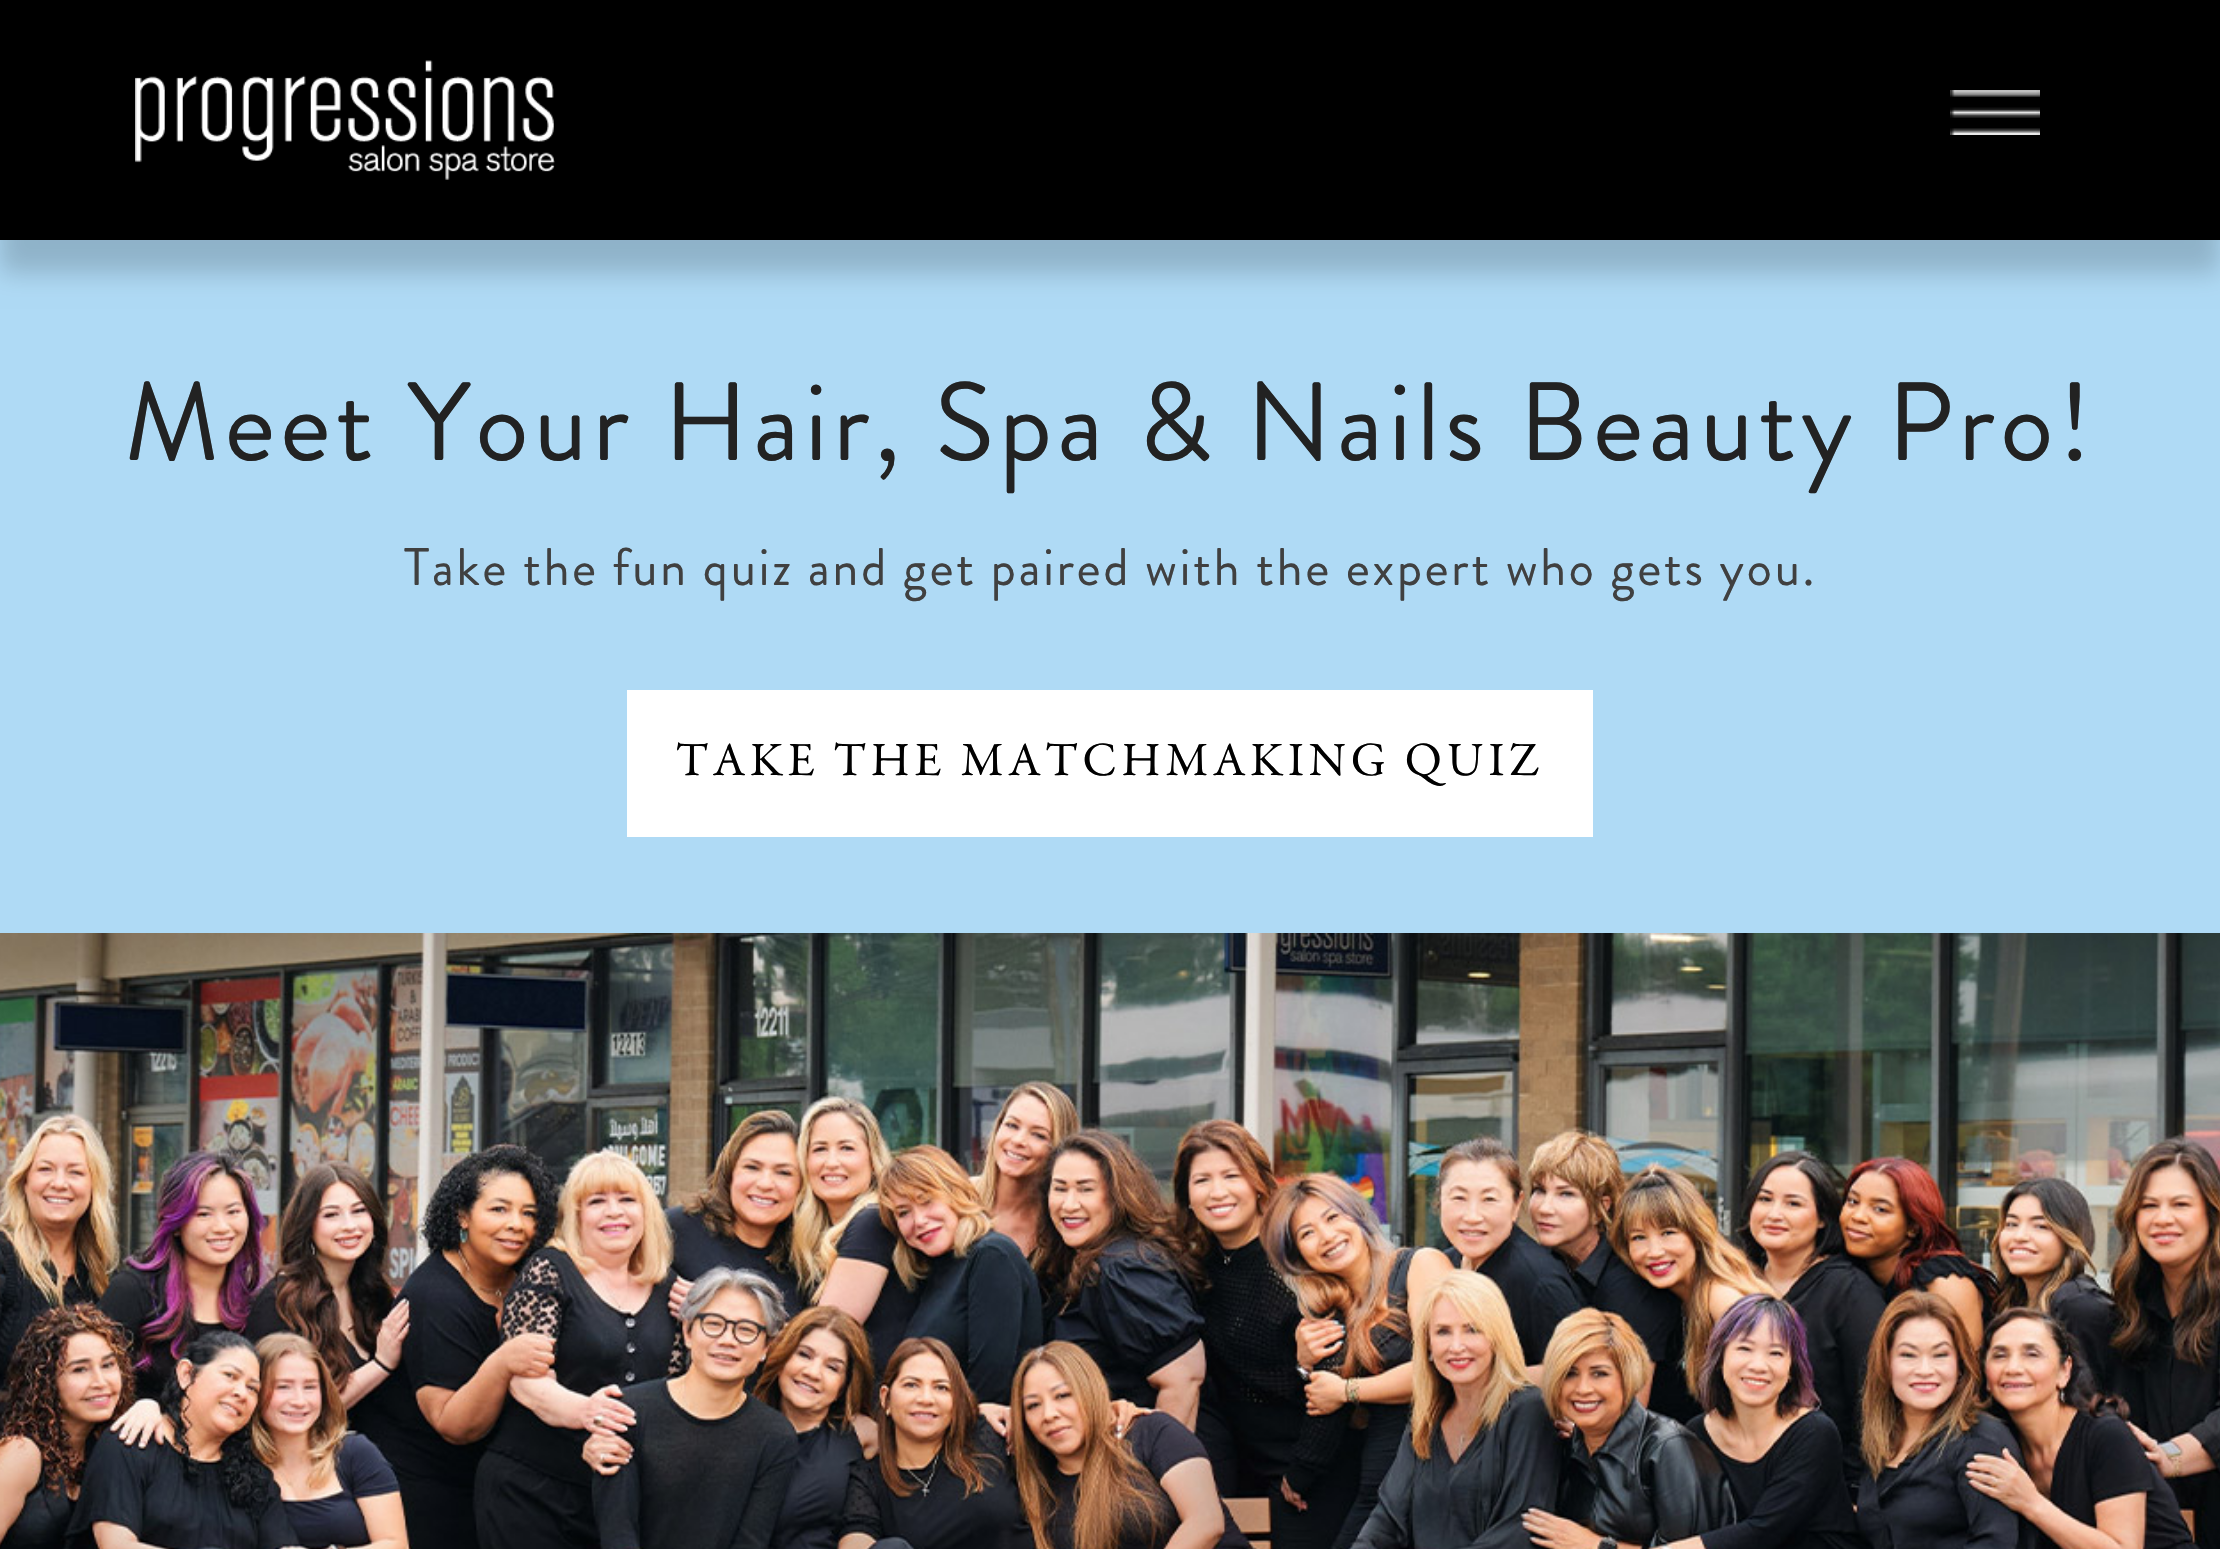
#include "include/core/SkBlurTypes.h"
#include "include/core/SkCanvas.h"
#include "include/core/SkData.h"
#include "include/core/SkFont.h"
#include "include/core/SkFontMgr.h"
#include "include/core/SkImage.h"
#include "include/core/SkMaskFilter.h"
#include "include/core/SkPaint.h"
#include "include/core/SkPathBuilder.h"
#include "include/core/SkTextBlob.h"
#include "include/effects/SkDashPathEffect.h"
#include "include/effects/SkGradientShader.h"
#include "include/utils/SkParsePath.h"

extern sk_sp<SkFontMgr> fontMgr;

static SkFont font(const char* family, int weight, float size, bool italic = false) {
    SkFontStyle style(weight, SkFontStyle::kNormal_Width,
        italic ? SkFontStyle::kItalic_Slant : SkFontStyle::kUpright_Slant);
    SkFont result(fontMgr->matchFamilyStyle(family, style), size);
    result.setSubpixel(true);
    return result;
}

static void drawTracked(SkCanvas* canvas, const char* s, float x, float y, const SkFont& font, const SkPaint& ink, float letter, float word) {
    std::vector<SkGlyphID> glyphs(font.countText(s, strlen(s), SkTextEncoding::kUTF8));
    std::vector<float> xs(glyphs.size());
    font.textToGlyphs(s, strlen(s), SkTextEncoding::kUTF8, glyphs);
    font.getXPos(glyphs, xs, x);
    float extra = 0;
    for (size_t i = 0; i < glyphs.size(); i++) {
        xs[i] += extra;
        extra += letter + word * (glyphs[i] == font.unicharToGlyph(' '));
    }
    canvas->drawTextBlob(SkTextBlob::MakeFromPosHGlyphs(glyphs, xs, y, font), 0, 0, ink);
}

static void fillRect(SkCanvas* canvas, float x, float y, float w, float h, SkColor color) {
    SkPaint ink(SkColor4f::FromColor(color));
    ink.setAntiAlias(true);
    canvas->drawRect(SkRect::MakeXYWH(x, y, w, h), ink);
}

static void drawPhoto(SkCanvas* canvas, const char* path, float x, float y, float w, float h) {
    auto image = SkImages::DeferredFromEncodedData(SkData::MakeFromFileName(path));
    canvas->drawImageRect(image, SkRect::MakeXYWH(x, y, w, h), SkSamplingOptions());
}

void draw(SkCanvas* canvas) {
    SkPaint paint;
    paint.setAntiAlias(true);
    canvas->clear(0xFFAFDAF5);
    paint.setColor(0x2E000000);
    paint.setMaskFilter(SkMaskFilter::MakeBlur(kNormal_SkBlurStyle, 12));
    canvas->drawRect(SkRect::MakeXYWH(0, 33, 2220, 240), paint);
    paint.setMaskFilter(nullptr);
    fillRect(canvas, 0, 0, 2220, 240, 0xFF000000);
    drawPhoto(canvas, "assets/img1.png", 135, 60, 420, 120);
    drawPhoto(canvas, "assets/img2.png", 1950, 90, 90, 45);
    SkFont font1 = font("Brandon Grotesque", 400, 111);
    paint.setColor(0xFF222222);
    drawTracked(canvas, "Meet Your Hair, Spa & Nails Beauty Pro!", 124, 460, font1, paint, 4.8f, 0);
    SkFont font2 = font("Brandon Grotesque", 400, 52.8f);
    paint.setColor(0xFF404040);
    drawTracked(canvas, "Take the fun quiz and get paired with the expert who gets you.", 404, 585, font2, paint, 2.4f, 0);
    fillRect(canvas, 627, 690, 966, 147, 0xFFFFFFFF);
    SkFont font3 = font("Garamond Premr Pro", 400, 48);
    paint.setColor(0xFF000000);
    drawTracked(canvas, "TAKE THE MATCHMAKING QUIZ", 676, 775, font3, paint, 4.8f, 0);
    drawPhoto(canvas, "assets/img3.png", 0, 933, 2220, 616);
}
